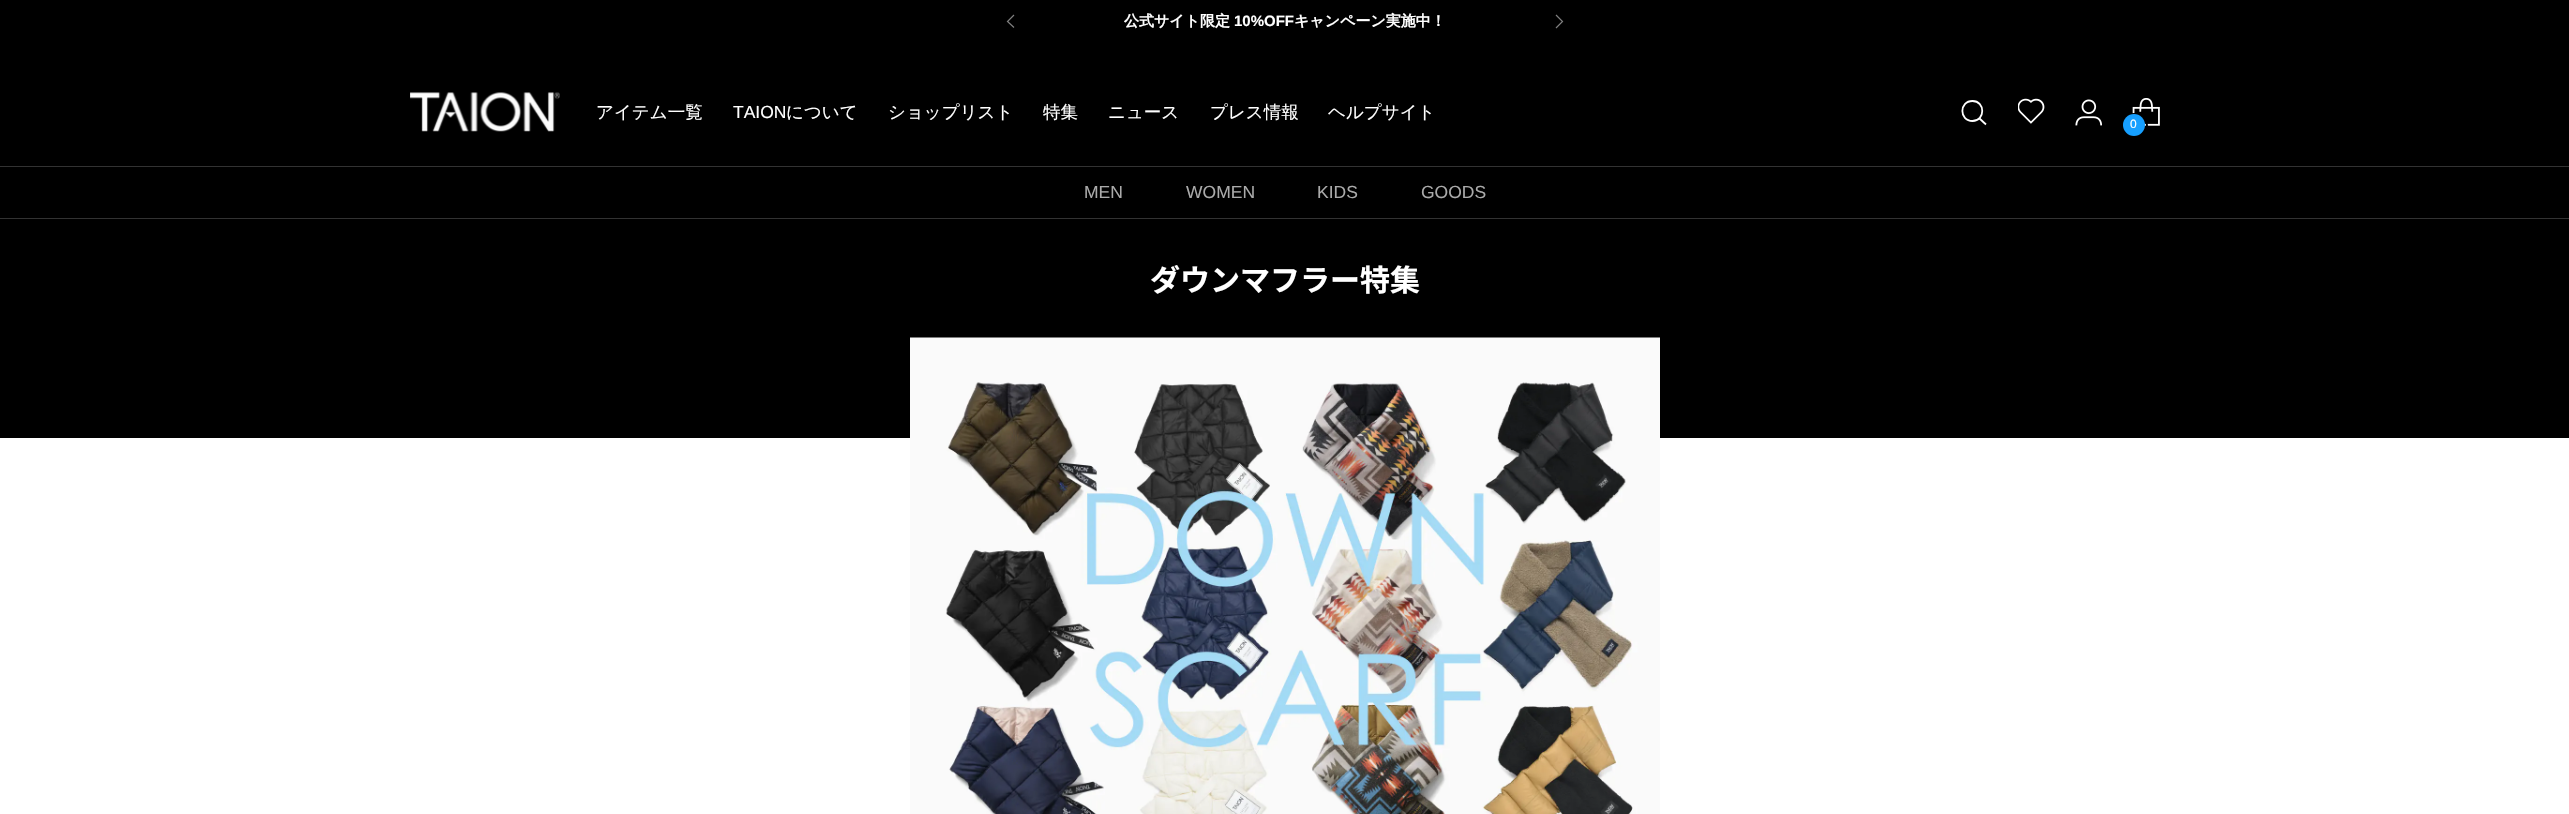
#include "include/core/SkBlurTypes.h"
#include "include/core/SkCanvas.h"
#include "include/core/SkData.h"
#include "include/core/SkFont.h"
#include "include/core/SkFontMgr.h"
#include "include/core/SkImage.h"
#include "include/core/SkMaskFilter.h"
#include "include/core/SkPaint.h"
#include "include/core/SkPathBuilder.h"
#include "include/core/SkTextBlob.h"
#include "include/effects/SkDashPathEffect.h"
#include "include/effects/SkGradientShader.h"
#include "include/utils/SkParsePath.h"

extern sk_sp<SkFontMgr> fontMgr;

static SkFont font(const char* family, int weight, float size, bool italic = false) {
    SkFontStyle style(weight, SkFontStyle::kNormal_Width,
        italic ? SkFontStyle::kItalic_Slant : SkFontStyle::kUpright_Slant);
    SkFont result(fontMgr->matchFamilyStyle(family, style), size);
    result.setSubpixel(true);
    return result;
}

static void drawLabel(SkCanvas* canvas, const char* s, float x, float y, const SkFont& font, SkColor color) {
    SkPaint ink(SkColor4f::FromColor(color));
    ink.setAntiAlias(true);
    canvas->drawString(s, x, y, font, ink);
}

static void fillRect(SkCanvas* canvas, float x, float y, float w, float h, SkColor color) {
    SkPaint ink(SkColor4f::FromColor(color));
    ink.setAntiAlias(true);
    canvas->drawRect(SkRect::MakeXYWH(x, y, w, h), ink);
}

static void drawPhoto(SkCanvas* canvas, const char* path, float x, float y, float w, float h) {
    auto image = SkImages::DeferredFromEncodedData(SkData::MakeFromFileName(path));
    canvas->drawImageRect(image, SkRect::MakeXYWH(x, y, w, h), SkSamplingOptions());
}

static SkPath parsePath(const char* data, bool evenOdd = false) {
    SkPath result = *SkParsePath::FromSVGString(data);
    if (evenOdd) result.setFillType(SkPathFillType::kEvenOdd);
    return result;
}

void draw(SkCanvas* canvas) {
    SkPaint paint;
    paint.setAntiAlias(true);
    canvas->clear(0xFFFFFFFF);
    fillRect(canvas, 0, 0, 2569, 218, 0xFF000000);
    SkFont font1 = font("WenQuanYi Zen Hei", 700, 15);
    drawLabel(canvas, "公式サイト限定", 1124, 26, font1, 0xFFFFFFFF);
    SkFont font2 = font("Liberation Sans", 700, 15);
    drawLabel(canvas, "10%OFF", 1234, 26, font2, 0xFFFFFFFF);
    drawLabel(canvas, "キャンペーン実施中！", 1294, 26, font1, 0xFFFFFFFF);
    paint.setStroke(true);
    paint.setStrokeWidth(1.2f);
    paint.setColor(0xFF808080);
    canvas->drawPath(parsePath("M1014 15L1007.5 21.5L1014 27.5"), paint);
    canvas->drawPath(parsePath("M1556 28L1562.5 21.5L1556 15"), paint);
    drawPhoto(canvas, "assets/img1.png", 410, 92, 150, 40);
    SkFont font3 = font("WenQuanYi Zen Hei", 500, 17.5f);
    drawLabel(canvas, "アイテム一覧", 596, 118, font3, 0xFFFFFFFF);
    SkFont font4 = font("Liberation Sans", 400, 17.5f);
    drawLabel(canvas, "TAION", 733, 118, font4, 0xFFFFFFFF);
    drawLabel(canvas, "について", 786, 118, font3, 0xFFFFFFFF);
    drawLabel(canvas, "ショップリスト", 888, 118, font3, 0xFFFFFFFF);
    drawLabel(canvas, "特集", 1043, 118, font3, 0xFFFFFFFF);
    drawLabel(canvas, "ニュース", 1108, 118, font3, 0xFFFFFFFF);
    drawLabel(canvas, "プレス情報", 1210, 118, font3, 0xFFFFFFFF);
    drawLabel(canvas, "ヘルプサイト", 1328, 118, font3, 0xFFFFFFFF);
    paint.setStrokeWidth(1.8f);
    paint.setStrokeCap(SkPaint::kRound_Cap);
    paint.setColor(0xFFFFFFFF);
    canvas->drawPath(parsePath("M1972.5 121C1985.5 121 1985.5 101 1972.5 101C1959 101 1959 121 1972.5 121Z"), paint);
    paint.setStrokeCap(SkPaint::kButt_Cap);
    canvas->drawPath(parsePath("M1979.5 118.5L1986 124.5"), paint);
    drawPhoto(canvas, "assets/img2.png", 2018, 98, 27, 26);
    drawPhoto(canvas, "assets/img3.png", 2075, 99, 27, 27);
    drawPhoto(canvas, "assets/img4.png", 2132, 98, 28, 28);
    paint.setStrokeWidth(2);
    paint.setColor(0xFF000000);
    canvas->drawRoundRect(SkRect::MakeXYWH(2122, 114, 25, 24), 12, 12, paint);
    paint.setStroke(false);
    paint.setColor(0xFF169FFF);
    canvas->drawCircle(2134, 125, 11, paint);
    SkFont font5 = font("Liberation Sans", 400, 12);
    drawLabel(canvas, "0", 2130, 128, font5, 0xFFFFFFFF);
    fillRect(canvas, 0, 166, 2569, 1, 0xFF323232);
    fillRect(canvas, 0, 218, 2569, 1, 0xFF323232);
    drawLabel(canvas, "MEN", 1084, 198, font4, 0xFFAAAAAA);
    drawLabel(canvas, "WOMEN", 1186, 198, font4, 0xFFAAAAAA);
    drawLabel(canvas, "KIDS", 1317, 198, font4, 0xFFAAAAAA);
    drawLabel(canvas, "GOODS", 1421, 198, font4, 0xFFAAAAAA);
    fillRect(canvas, 0, 219, 2569, 219, 0xFF000000);
    SkFont font6 = font("Noto Sans JP", 700, 30);
    drawLabel(canvas, "ダウンマフラー特集", 1150, 291, font6, 0xFFFFFFFF);
    drawPhoto(canvas, "assets/img5.png", 910, 337, 750, 477);
}
